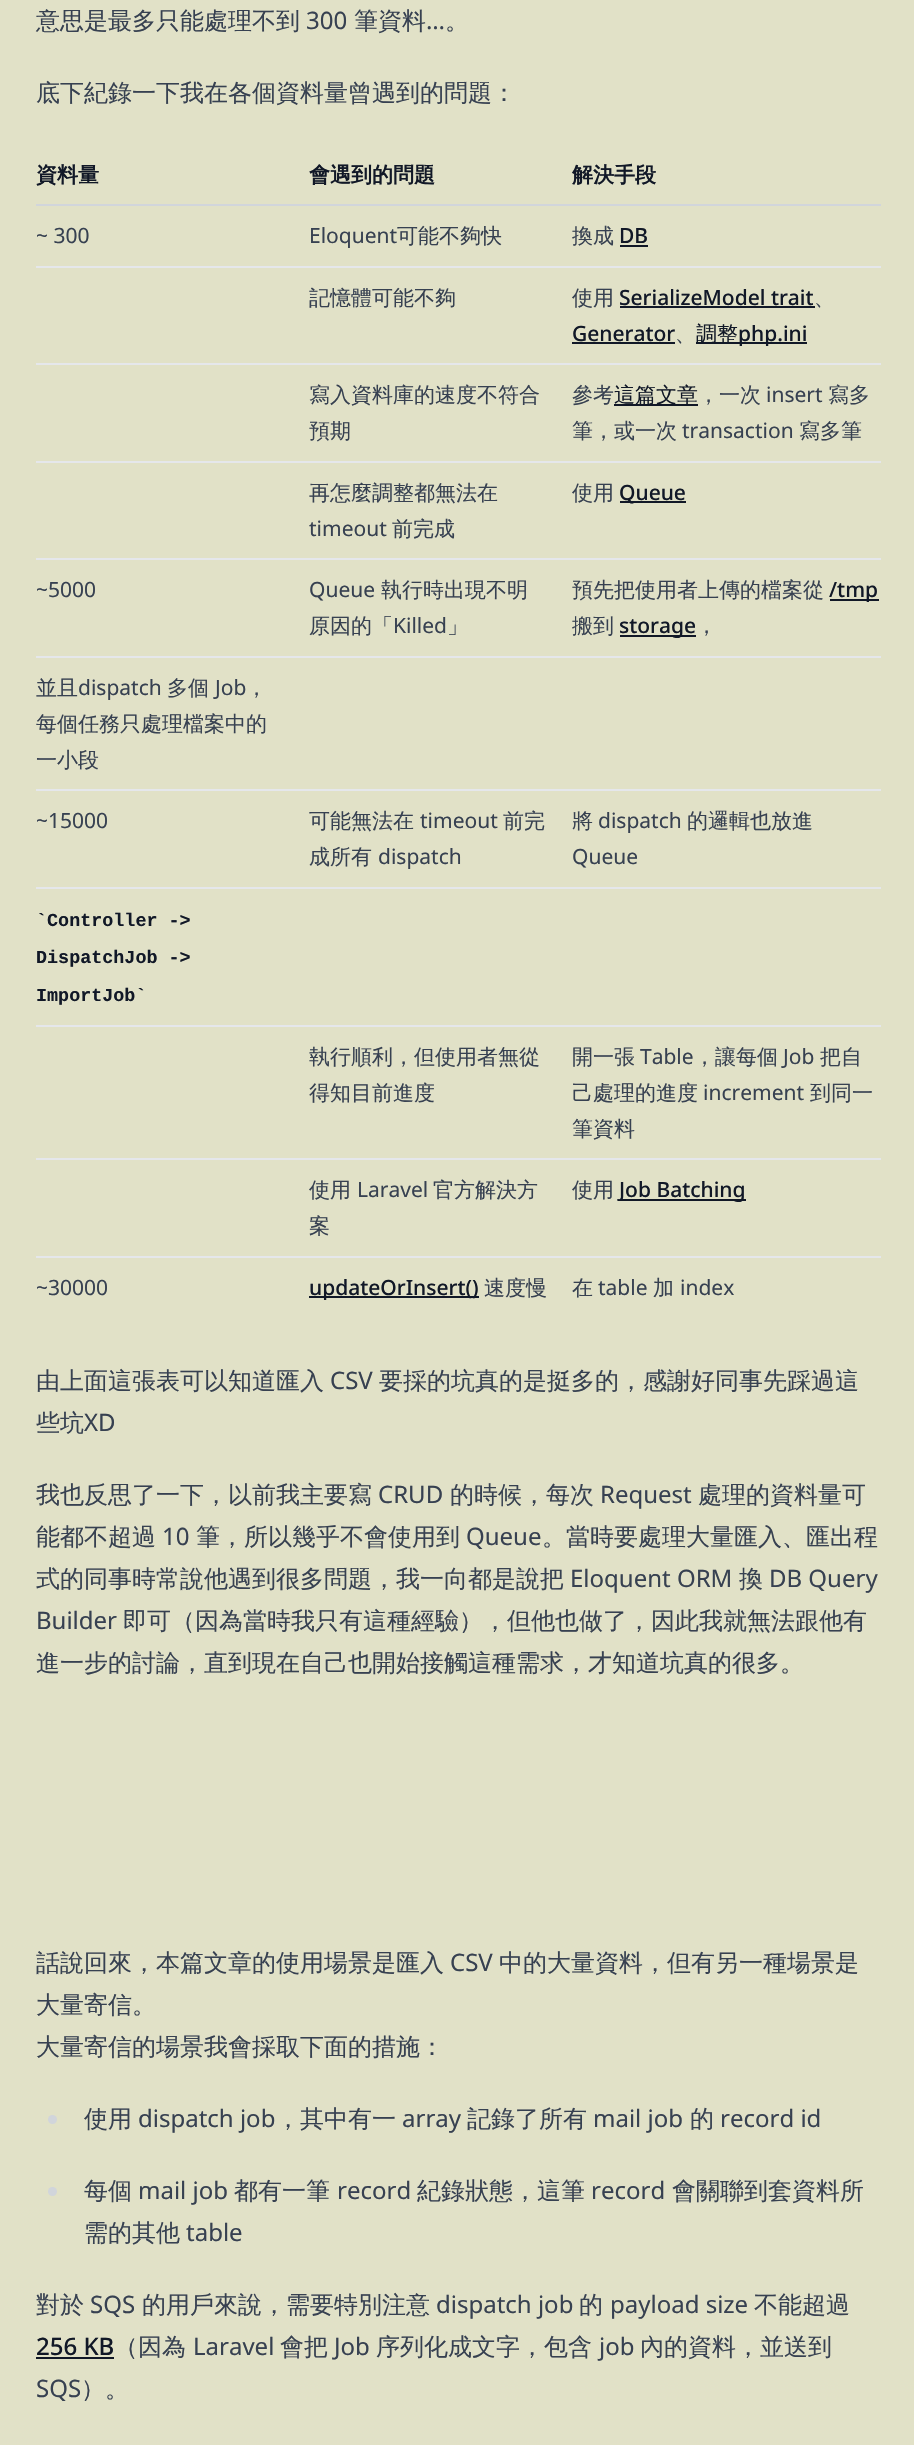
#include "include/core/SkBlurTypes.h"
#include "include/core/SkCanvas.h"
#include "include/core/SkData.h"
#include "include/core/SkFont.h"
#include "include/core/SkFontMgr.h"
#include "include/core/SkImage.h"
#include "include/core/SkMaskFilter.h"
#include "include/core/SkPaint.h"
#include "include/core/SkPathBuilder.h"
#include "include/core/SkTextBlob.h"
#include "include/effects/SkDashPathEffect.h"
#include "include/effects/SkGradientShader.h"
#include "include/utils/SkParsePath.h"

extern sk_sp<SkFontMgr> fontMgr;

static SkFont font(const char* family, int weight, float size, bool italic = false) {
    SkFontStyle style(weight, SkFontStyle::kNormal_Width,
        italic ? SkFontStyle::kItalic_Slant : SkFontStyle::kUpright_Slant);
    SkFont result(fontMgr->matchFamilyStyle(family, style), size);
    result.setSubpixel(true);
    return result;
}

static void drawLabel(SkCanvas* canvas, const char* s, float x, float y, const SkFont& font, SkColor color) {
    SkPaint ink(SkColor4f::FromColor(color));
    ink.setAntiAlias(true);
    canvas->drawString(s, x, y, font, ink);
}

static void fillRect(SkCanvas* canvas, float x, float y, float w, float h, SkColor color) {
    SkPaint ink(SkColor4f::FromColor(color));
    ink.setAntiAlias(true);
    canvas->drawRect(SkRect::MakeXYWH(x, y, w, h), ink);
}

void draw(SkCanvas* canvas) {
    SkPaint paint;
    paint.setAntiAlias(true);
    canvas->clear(0xFFE1E1C7);
    SkFont font1 = font("WenQuanYi Zen Hei", 500, 24);
    drawLabel(canvas, "意思是最多只能處理不到", 36, 29, font1, 0xFF374151);
    SkFont font2 = font("Noto Sans", 400, 24);
    drawLabel(canvas, "300", 306, 29, font2, 0xFF374151);
    drawLabel(canvas, "筆資料", 354, 29, font1, 0xFF374151);
    drawLabel(canvas, "…", 426, 29, font2, 0xFF374151);
    drawLabel(canvas, "。", 445, 29, font1, 0xFF374151);
    drawLabel(canvas, "底下紀錄一下我在各個資料量曾遇到的問題：", 36, 101, font1, 0xFF374151);
    fillRect(canvas, 36, 204, 845, 2, 0xFFD1D5DB);
    SkFont font3 = font("WenQuanYi Zen Hei", 700, 21);
    drawLabel(canvas, "資料量", 36, 182, font3, 0xFF111827);
    drawLabel(canvas, "會遇到的問題", 309, 182, font3, 0xFF111827);
    drawLabel(canvas, "解決手段", 572, 182, font3, 0xFF111827);
    fillRect(canvas, 36, 266, 845, 2, 0xFFE5E7EB);
    SkFont font4 = font("Noto Sans", 400, 21);
    drawLabel(canvas, "~ 300", 36, 243, font4, 0xFF374151);
    drawLabel(canvas, "Eloquent", 309, 243, font4, 0xFF374151);
    SkFont font5 = font("WenQuanYi Zen Hei", 500, 21);
    drawLabel(canvas, "可能不夠快", 397, 243, font5, 0xFF374151);
    drawLabel(canvas, "換成", 572, 243, font5, 0xFF374151);
    SkFont font6 = font("Noto Sans", 500, 21);
    drawLabel(canvas, "DB", 619, 243, font6, 0xFF111827);
    fillRect(canvas, 620, 245, 28, 2, 0xFF111827);
    fillRect(canvas, 36, 363, 845, 2, 0xFFE5E7EB);
    drawLabel(canvas, "記憶體可能不夠", 309, 305, font5, 0xFF374151);
    drawLabel(canvas, "使用", 572, 305, font5, 0xFF374151);
    drawLabel(canvas, "SerializeModel trait", 619, 305, font6, 0xFF111827);
    fillRect(canvas, 620, 306, 195, 2, 0xFF111827);
    drawLabel(canvas, "、", 814, 305, font5, 0xFF374151);
    drawLabel(canvas, "Generator", 572, 341, font6, 0xFF111827);
    fillRect(canvas, 572, 342, 103, 2, 0xFF111827);
    drawLabel(canvas, "、", 675, 341, font5, 0xFF374151);
    fillRect(canvas, 696, 342, 111, 2, 0xFF111827);
    drawLabel(canvas, "調整", 696, 341, font5, 0xFF111827);
    drawLabel(canvas, "php.ini", 738, 341, font6, 0xFF111827);
    fillRect(canvas, 36, 461, 845, 2, 0xFFE5E7EB);
    drawLabel(canvas, "寫入資料庫的速度不符合", 309, 402, font5, 0xFF374151);
    drawLabel(canvas, "預期", 309, 438, font5, 0xFF374151);
    drawLabel(canvas, "參考", 572, 402, font5, 0xFF374151);
    fillRect(canvas, 614, 404, 84, 2, 0xFF111827);
    drawLabel(canvas, "這篇文章", 614, 402, font5, 0xFF111827);
    drawLabel(canvas, "，一次", 698, 402, font5, 0xFF374151);
    drawLabel(canvas, "insert", 766, 402, font4, 0xFF374151);
    drawLabel(canvas, "寫多", 828, 402, font5, 0xFF374151);
    drawLabel(canvas, "筆，或一次", 572, 438, font5, 0xFF374151);
    drawLabel(canvas, "transaction", 682, 438, font4, 0xFF374151);
    drawLabel(canvas, "寫多筆", 799, 438, font5, 0xFF374151);
    fillRect(canvas, 36, 558, 845, 2, 0xFFE5E7EB);
    drawLabel(canvas, "再怎麼調整都無法在", 309, 500, font5, 0xFF374151);
    drawLabel(canvas, "timeout", 309, 536, font4, 0xFF374151);
    drawLabel(canvas, "前完成", 392, 536, font5, 0xFF374151);
    drawLabel(canvas, "使用", 572, 500, font5, 0xFF374151);
    fillRect(canvas, 620, 501, 66, 2, 0xFF111827);
    drawLabel(canvas, "Queue", 619, 500, font6, 0xFF111827);
    fillRect(canvas, 36, 656, 845, 2, 0xFFE5E7EB);
    drawLabel(canvas, "~5000", 36, 597, font4, 0xFF374151);
    drawLabel(canvas, "Queue", 309, 597, font4, 0xFF374151);
    drawLabel(canvas, "執行時出現不明", 381, 597, font5, 0xFF374151);
    drawLabel(canvas, "原因的「", 309, 633, font5, 0xFF374151);
    drawLabel(canvas, "Killed", 393, 633, font4, 0xFF374151);
    drawLabel(canvas, "」", 447, 633, font5, 0xFF374151);
    drawLabel(canvas, "預先把使用者上傳的檔案從", 572, 597, font5, 0xFF374151);
    fillRect(canvas, 830, 599, 49, 2, 0xFF111827);
    drawLabel(canvas, "/tmp", 829, 597, font6, 0xFF111827);
    drawLabel(canvas, "搬到", 572, 633, font5, 0xFF374151);
    fillRect(canvas, 620, 635, 76, 2, 0xFF111827);
    drawLabel(canvas, "storage", 619, 633, font6, 0xFF111827);
    drawLabel(canvas, "，", 696, 633, font5, 0xFF374151);
    fillRect(canvas, 36, 789, 845, 2, 0xFFE5E7EB);
    drawLabel(canvas, "並且", 36, 695, font5, 0xFF374151);
    drawLabel(canvas, "dispatch", 78, 695, font4, 0xFF374151);
    drawLabel(canvas, "多個", 167, 695, font5, 0xFF374151);
    drawLabel(canvas, "Job", 215, 695, font4, 0xFF374151);
    drawLabel(canvas, "，", 246, 695, font5, 0xFF374151);
    drawLabel(canvas, "每個任務只處理檔案中的", 36, 731, font5, 0xFF374151);
    drawLabel(canvas, "一小段", 36, 767, font5, 0xFF374151);
    fillRect(canvas, 36, 887, 845, 2, 0xFFE5E7EB);
    drawLabel(canvas, "~15000", 36, 828, font4, 0xFF374151);
    drawLabel(canvas, "可能無法在", 309, 828, font5, 0xFF374151);
    drawLabel(canvas, "timeout", 420, 828, font4, 0xFF374151);
    drawLabel(canvas, "前完", 503, 828, font5, 0xFF374151);
    drawLabel(canvas, "成所有", 309, 864, font5, 0xFF374151);
    drawLabel(canvas, "dispatch", 378, 864, font4, 0xFF374151);
    drawLabel(canvas, "將", 572, 828, font5, 0xFF374151);
    drawLabel(canvas, "dispatch", 598, 828, font4, 0xFF374151);
    drawLabel(canvas, "的邏輯也放進", 687, 828, font5, 0xFF374151);
    drawLabel(canvas, "Queue", 572, 864, font4, 0xFF374151);
    fillRect(canvas, 36, 1025, 845, 2, 0xFFE5E7EB);
    SkFont font7 = font("Liberation Mono", 700, 18.4f);
    drawLabel(canvas, "`Controller ->", 36, 926, font7, 0xFF111827);
    drawLabel(canvas, "DispatchJob ->", 36, 963, font7, 0xFF111827);
    drawLabel(canvas, "ImportJob`", 36, 1001, font7, 0xFF111827);
    fillRect(canvas, 36, 1158, 845, 2, 0xFFE5E7EB);
    drawLabel(canvas, "執行順利，但使用者無從", 309, 1064, font5, 0xFF374151);
    drawLabel(canvas, "得知目前進度", 309, 1100, font5, 0xFF374151);
    drawLabel(canvas, "開一張", 572, 1064, font5, 0xFF374151);
    drawLabel(canvas, "Table", 640, 1064, font4, 0xFF374151);
    drawLabel(canvas, "，讓每個", 694, 1064, font5, 0xFF374151);
    drawLabel(canvas, "Job", 783, 1064, font4, 0xFF374151);
    drawLabel(canvas, "把自", 820, 1064, font5, 0xFF374151);
    drawLabel(canvas, "己處理的進度", 572, 1100, font5, 0xFF374151);
    drawLabel(canvas, "increment", 703, 1100, font4, 0xFF374151);
    drawLabel(canvas, "到同一", 810, 1100, font5, 0xFF374151);
    drawLabel(canvas, "筆資料", 572, 1136, font5, 0xFF374151);
    fillRect(canvas, 36, 1256, 845, 2, 0xFFE5E7EB);
    drawLabel(canvas, "使用", 309, 1197, font5, 0xFF374151);
    drawLabel(canvas, "Laravel", 357, 1197, font4, 0xFF374151);
    drawLabel(canvas, "官方解決方", 433, 1197, font5, 0xFF374151);
    drawLabel(canvas, "案", 309, 1233, font5, 0xFF374151);
    drawLabel(canvas, "使用", 572, 1197, font5, 0xFF374151);
    fillRect(canvas, 620, 1199, 126, 2, 0xFF111827);
    drawLabel(canvas, "Job Batching", 619, 1197, font6, 0xFF111827);
    drawLabel(canvas, "~30000", 36, 1295, font4, 0xFF374151);
    fillRect(canvas, 309, 1296, 170, 2, 0xFF111827);
    drawLabel(canvas, "updateOrInsert()", 309, 1295, font6, 0xFF111827);
    drawLabel(canvas, "速度慢", 484, 1295, font5, 0xFF374151);
    drawLabel(canvas, "在", 572, 1295, font5, 0xFF374151);
    drawLabel(canvas, "table", 598, 1295, font4, 0xFF374151);
    drawLabel(canvas, "加", 653, 1295, font5, 0xFF374151);
    drawLabel(canvas, "index", 680, 1295, font4, 0xFF374151);
    drawLabel(canvas, "由上面這張表可以知道匯入", 36, 1389, font1, 0xFF374151);
    drawLabel(canvas, "CSV", 330, 1389, font2, 0xFF374151);
    drawLabel(canvas, "要採的坑真的是挺多的，感謝好同事先踩過這", 379, 1389, font1, 0xFF374151);
    drawLabel(canvas, "些坑", 36, 1431, font1, 0xFF374151);
    drawLabel(canvas, "XD", 84, 1431, font2, 0xFF374151);
    drawLabel(canvas, "我也反思了一下，以前我主要寫", 36, 1503, font1, 0xFF374151);
    drawLabel(canvas, "CRUD", 378, 1503, font2, 0xFF374151);
    drawLabel(canvas, "的時候，每次", 450, 1503, font1, 0xFF374151);
    drawLabel(canvas, "Request", 600, 1503, font2, 0xFF374151);
    drawLabel(canvas, "處理的資料量可", 698, 1503, font1, 0xFF374151);
    drawLabel(canvas, "能都不超過", 36, 1545, font1, 0xFF374151);
    drawLabel(canvas, "10", 162, 1545, font2, 0xFF374151);
    drawLabel(canvas, "筆，所以幾乎不會使用到", 196, 1545, font1, 0xFF374151);
    drawLabel(canvas, "Queue", 466, 1545, font2, 0xFF374151);
    drawLabel(canvas, "。當時要處理大量匯入、匯出程", 542, 1545, font1, 0xFF374151);
    drawLabel(canvas, "式的同事時常說他遇到很多問題，我一向都是說把", 36, 1587, font1, 0xFF374151);
    drawLabel(canvas, "Eloquent ORM", 570, 1587, font2, 0xFF374151);
    drawLabel(canvas, "換", 739, 1587, font1, 0xFF374151);
    drawLabel(canvas, "DB Query", 769, 1587, font2, 0xFF374151);
    drawLabel(canvas, "Builder", 36, 1629, font2, 0xFF374151);
    drawLabel(canvas, "即可（因為當時我只有這種經驗），但他也做了，因此我就無法跟他有", 123, 1629, font1, 0xFF374151);
    drawLabel(canvas, "進一步的討論，直到現在自己也開始接觸這種需求，才知道坑真的很多。", 36, 1671, font1, 0xFF374151);
    drawLabel(canvas, "話說回來，本篇文章的使用場景是匯入", 36, 1971, font1, 0xFF374151);
    drawLabel(canvas, "CSV", 450, 1971, font2, 0xFF374151);
    drawLabel(canvas, "中的大量資料，但有另一種場景是", 499, 1971, font1, 0xFF374151);
    drawLabel(canvas, "大量寄信。", 36, 2013, font1, 0xFF374151);
    drawLabel(canvas, "大量寄信的場景我會採取下面的措施：", 36, 2055, font1, 0xFF374151);
    paint.setColor(0xFFD1D5DB);
    canvas->drawCircle(52.5f, 2119.5f, 4.5f, paint);
    drawLabel(canvas, "使用", 84, 2127, font1, 0xFF374151);
    drawLabel(canvas, "dispatch job", 138, 2127, font2, 0xFF374151);
    drawLabel(canvas, "，其中有一", 276, 2127, font1, 0xFF374151);
    drawLabel(canvas, "array", 402, 2127, font2, 0xFF374151);
    drawLabel(canvas, "記錄了所有", 467, 2127, font1, 0xFF374151);
    drawLabel(canvas, "mail job", 593, 2127, font2, 0xFF374151);
    drawLabel(canvas, "的", 690, 2127, font1, 0xFF374151);
    drawLabel(canvas, "record id", 720, 2127, font2, 0xFF374151);
    canvas->drawCircle(52.5f, 2191.5f, 4.5f, paint);
    drawLabel(canvas, "每個", 84, 2199, font1, 0xFF374151);
    drawLabel(canvas, "mail job", 138, 2199, font2, 0xFF374151);
    drawLabel(canvas, "都有一筆", 234, 2199, font1, 0xFF374151);
    drawLabel(canvas, "record", 337, 2199, font2, 0xFF374151);
    drawLabel(canvas, "紀錄狀態，這筆", 417, 2199, font1, 0xFF374151);
    drawLabel(canvas, "record", 591, 2199, font2, 0xFF374151);
    drawLabel(canvas, "會關聯到套資料所", 672, 2199, font1, 0xFF374151);
    drawLabel(canvas, "需的其他", 84, 2241, font1, 0xFF374151);
    drawLabel(canvas, "table", 186, 2241, font2, 0xFF374151);
    drawLabel(canvas, "對於", 36, 2313, font1, 0xFF374151);
    drawLabel(canvas, "SQS", 90, 2313, font2, 0xFF374151);
    drawLabel(canvas, "的用戶來說，需要特別注意", 142, 2313, font1, 0xFF374151);
    drawLabel(canvas, "dispatch job", 436, 2313, font2, 0xFF374151);
    drawLabel(canvas, "的", 579, 2313, font1, 0xFF374151);
    drawLabel(canvas, "payload size", 610, 2313, font2, 0xFF374151);
    drawLabel(canvas, "不能超過", 754, 2313, font1, 0xFF374151);
    SkFont font8 = font("Noto Sans", 500, 24);
    drawLabel(canvas, "256 KB", 36, 2355, font8, 0xFF111827);
    fillRect(canvas, 36, 2357, 78, 2, 0xFF111827);
    drawLabel(canvas, "（因為", 114, 2355, font1, 0xFF374151);
    drawLabel(canvas, "Laravel", 193, 2355, font2, 0xFF374151);
    drawLabel(canvas, "會把", 280, 2355, font1, 0xFF374151);
    drawLabel(canvas, "Job", 334, 2355, font2, 0xFF374151);
    drawLabel(canvas, "序列化成文字，包含", 376, 2355, font1, 0xFF374151);
    drawLabel(canvas, "job", 599, 2355, font2, 0xFF374151);
    drawLabel(canvas, "內的資料，並送到", 640, 2355, font1, 0xFF374151);
    drawLabel(canvas, "SQS", 36, 2397, font2, 0xFF374151);
    drawLabel(canvas, "）。", 81, 2397, font1, 0xFF374151);
}
